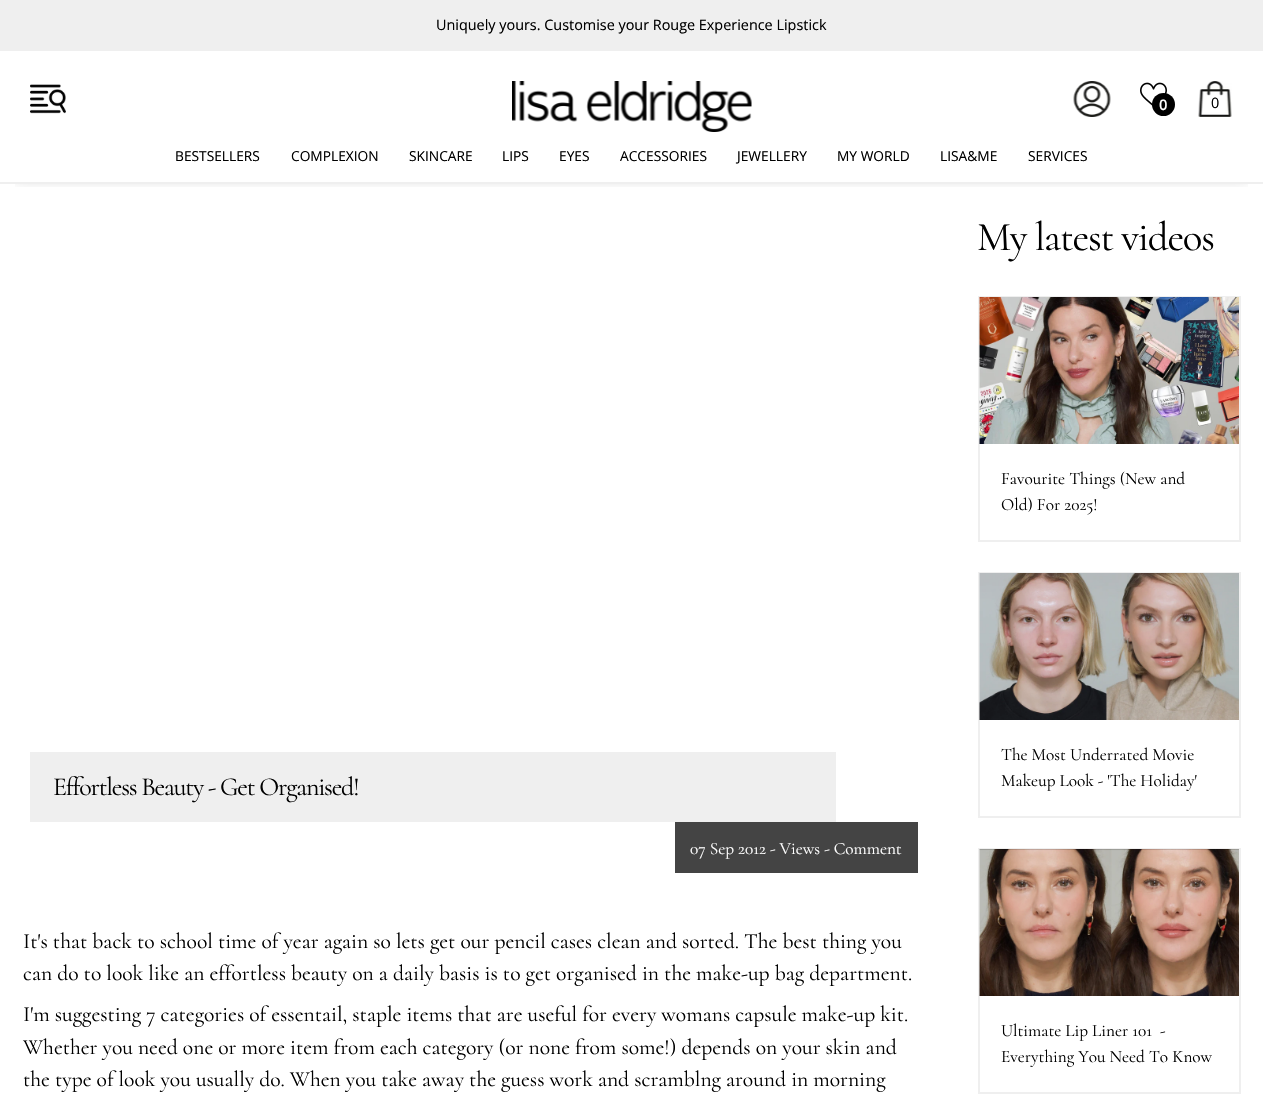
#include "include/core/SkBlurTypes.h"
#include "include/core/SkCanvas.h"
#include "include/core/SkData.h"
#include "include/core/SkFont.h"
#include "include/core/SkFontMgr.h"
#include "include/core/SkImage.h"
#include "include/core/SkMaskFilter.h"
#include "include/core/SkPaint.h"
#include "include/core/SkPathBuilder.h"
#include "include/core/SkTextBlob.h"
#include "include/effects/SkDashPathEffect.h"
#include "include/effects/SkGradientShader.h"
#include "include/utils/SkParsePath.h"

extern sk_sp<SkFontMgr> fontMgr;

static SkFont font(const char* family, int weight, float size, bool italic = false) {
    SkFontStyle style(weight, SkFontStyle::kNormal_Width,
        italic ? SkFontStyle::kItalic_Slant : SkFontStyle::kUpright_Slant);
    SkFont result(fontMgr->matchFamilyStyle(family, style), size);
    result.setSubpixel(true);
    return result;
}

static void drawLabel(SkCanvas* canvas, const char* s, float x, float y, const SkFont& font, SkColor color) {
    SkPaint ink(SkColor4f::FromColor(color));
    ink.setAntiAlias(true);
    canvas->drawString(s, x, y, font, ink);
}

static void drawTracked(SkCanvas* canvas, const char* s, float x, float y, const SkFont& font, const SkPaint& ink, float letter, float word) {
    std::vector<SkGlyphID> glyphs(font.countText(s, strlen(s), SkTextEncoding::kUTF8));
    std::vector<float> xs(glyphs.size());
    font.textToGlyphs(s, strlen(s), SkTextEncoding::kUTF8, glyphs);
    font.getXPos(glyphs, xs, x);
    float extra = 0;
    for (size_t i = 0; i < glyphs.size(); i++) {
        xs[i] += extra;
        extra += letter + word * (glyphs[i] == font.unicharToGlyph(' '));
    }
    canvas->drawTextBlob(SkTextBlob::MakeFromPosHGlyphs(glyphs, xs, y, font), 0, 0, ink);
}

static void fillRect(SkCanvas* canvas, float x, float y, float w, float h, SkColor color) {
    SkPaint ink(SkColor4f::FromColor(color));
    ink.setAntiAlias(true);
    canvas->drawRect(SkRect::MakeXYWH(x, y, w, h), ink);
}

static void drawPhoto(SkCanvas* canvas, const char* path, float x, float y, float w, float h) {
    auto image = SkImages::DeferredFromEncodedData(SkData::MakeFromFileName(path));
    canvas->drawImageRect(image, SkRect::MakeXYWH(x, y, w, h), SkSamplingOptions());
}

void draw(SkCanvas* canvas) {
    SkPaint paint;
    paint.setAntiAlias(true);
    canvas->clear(0xFFFFFFFF);
    canvas->save();
    canvas->clipRect(SkRect::MakeXYWH(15, 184, 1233, 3));
    paint.setColor(0x4D000000);
    paint.setMaskFilter(SkMaskFilter::MakeBlur(kNormal_SkBlurStyle, 7.5f));
    canvas->drawRect(SkRect::MakeXYWH(15, 23, 1233, 153), paint);
    paint.setMaskFilter(nullptr);
    canvas->restore();
    fillRect(canvas, 0, 182, 1263, 2, 0xFFEFEFEF);
    fillRect(canvas, 0, 0, 1263, 51, 0xFFEFEFEF);
    SkFont font1 = font("Open Sans", 400, 14.4f);
    drawLabel(canvas, "Uniquely yours. Customise your Rouge Experience Lipstick", 436, 30, font1, 0xFF000000);
    drawPhoto(canvas, "assets/img1.png", 30, 84, 36, 30);
    drawPhoto(canvas, "assets/img2.png", 512, 81, 240, 51);
    drawPhoto(canvas, "assets/img3.png", 1073, 81, 38, 36);
    drawPhoto(canvas, "assets/img4.png", 1140, 82, 27, 25);
    paint.setColor(0xFF000000);
    canvas->drawCircle(1163.5f, 104.5f, 11.5f, paint);
    SkFont font2 = font("Open Sans", 700, 14);
    drawLabel(canvas, "0", 1159, 110, font2, 0xFFFFFFFF);
    drawPhoto(canvas, "assets/img5.png", 1198, 81, 34, 36);
    drawLabel(canvas, "0", 1211, 108, font1, 0xFF000000);
    SkFont font3 = font("Open Sans", 400, 13.75f);
    drawLabel(canvas, "BESTSELLERS", 175, 161, font3, 0xFF000000);
    drawLabel(canvas, "COMPLEXION", 291, 161, font3, 0xFF000000);
    drawLabel(canvas, "SKINCARE", 409, 161, font3, 0xFF000000);
    drawLabel(canvas, "LIPS", 502, 161, font3, 0xFF000000);
    drawLabel(canvas, "EYES", 559, 161, font3, 0xFF000000);
    drawLabel(canvas, "ACCESSORIES", 620, 161, font3, 0xFF000000);
    drawLabel(canvas, "JEWELLERY", 737, 161, font3, 0xFF000000);
    drawLabel(canvas, "MY WORLD", 837, 161, font3, 0xFF000000);
    drawLabel(canvas, "LISA&ME", 940, 161, font3, 0xFF000000);
    drawLabel(canvas, "SERVICES", 1028, 161, font3, 0xFF000000);
    fillRect(canvas, 30, 752, 806, 70, 0xFFEFEFEF);
    SkFont font4 = font("Cormorant", 400, 26);
    drawTracked(canvas, "Effortless Beauty - Get Organised!", 53, 795, font4, paint, -1.2f, 0);
    fillRect(canvas, 675, 822, 243, 51, 0xFF444444);
    SkFont font5 = font("Cormorant", 400, 17.25f);
    drawLabel(canvas, "07 Sep 2012 - Views - Comment", 690, 854, font5, 0xFFFFFFFF);
    SkFont font6 = font("Cormorant", 400, 21.6f);
    drawLabel(canvas, "It's that back to school time of year again so lets get our pencil cases clean and sorted. The best thing you", 23, 948, font6, 0xFF000000);
    drawLabel(canvas, "can do to look like an effortless beauty on a daily basis is to get organised in the make-up bag department.", 23, 980, font6, 0xFF000000);
    drawLabel(canvas, "I'm suggesting 7 categories of essentail, staple items that are useful for every womans capsule make-up kit.", 23, 1021, font6, 0xFF000000);
    drawLabel(canvas, "Whether you need one or more item from each category (or none from some!) depends on your skin and", 23, 1054, font6, 0xFF000000);
    drawLabel(canvas, "the type of look you usually do. When you take away the guess work and scramblng around in morning", 23, 1086, font6, 0xFF000000);
    SkFont font7 = font("Cormorant", 400, 40.75f);
    drawTracked(canvas, "My latest videos", 977, 250, font7, paint, -1.2f, 0);
    paint.setStroke(true);
    paint.setStrokeWidth(2);
    paint.setColor(0xFFEFEFEF);
    canvas->drawRect(SkRect::MakeXYWH(979, 297, 261, 244), paint);
    drawPhoto(canvas, "assets/img6.png", 979, 297, 260, 147);
    drawLabel(canvas, "Favourite Things (New and", 1001, 484, font5, 0xFF000000);
    drawLabel(canvas, "Old) For 2025!", 1001, 510, font5, 0xFF000000);
    canvas->drawRect(SkRect::MakeXYWH(979, 573, 261, 244), paint);
    drawPhoto(canvas, "assets/img7.png", 979, 573, 260, 147);
    drawLabel(canvas, "The Most Underrated Movie", 1001, 760, font5, 0xFF000000);
    drawLabel(canvas, "Makeup Look - 'The Holiday'", 1001, 786, font5, 0xFF000000);
    canvas->drawRect(SkRect::MakeXYWH(979, 849, 261, 244), paint);
    drawPhoto(canvas, "assets/img8.png", 979, 849, 260, 147);
    drawLabel(canvas, "Ultimate Lip Liner 101  -", 1001, 1036, font5, 0xFF000000);
    drawLabel(canvas, "Everything You Need To Know", 1001, 1062, font5, 0xFF000000);
}
